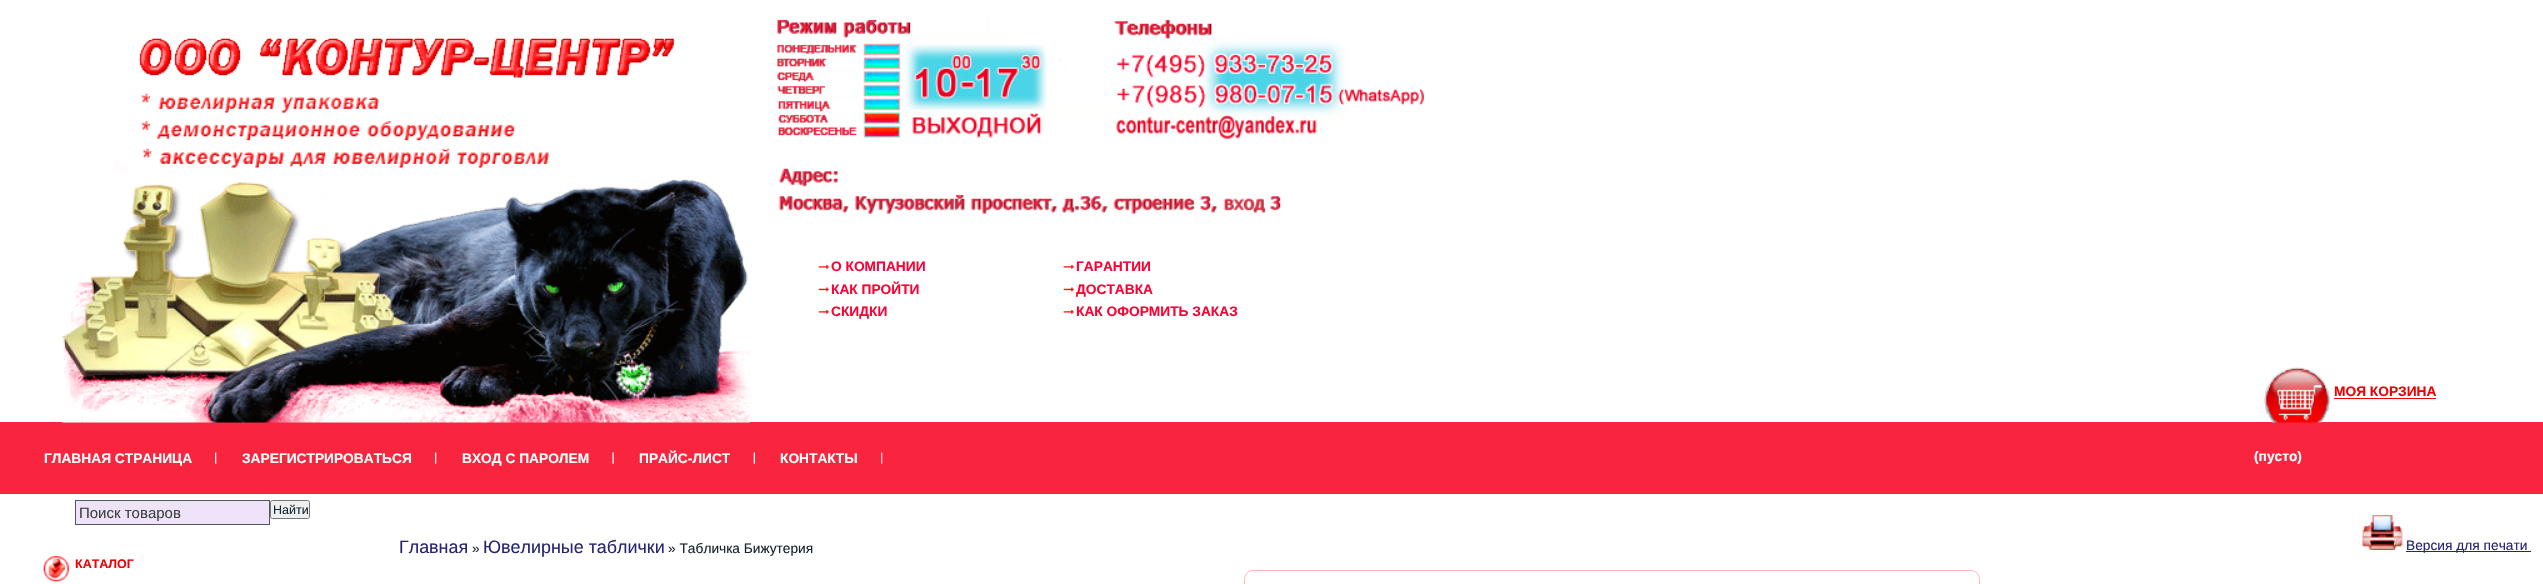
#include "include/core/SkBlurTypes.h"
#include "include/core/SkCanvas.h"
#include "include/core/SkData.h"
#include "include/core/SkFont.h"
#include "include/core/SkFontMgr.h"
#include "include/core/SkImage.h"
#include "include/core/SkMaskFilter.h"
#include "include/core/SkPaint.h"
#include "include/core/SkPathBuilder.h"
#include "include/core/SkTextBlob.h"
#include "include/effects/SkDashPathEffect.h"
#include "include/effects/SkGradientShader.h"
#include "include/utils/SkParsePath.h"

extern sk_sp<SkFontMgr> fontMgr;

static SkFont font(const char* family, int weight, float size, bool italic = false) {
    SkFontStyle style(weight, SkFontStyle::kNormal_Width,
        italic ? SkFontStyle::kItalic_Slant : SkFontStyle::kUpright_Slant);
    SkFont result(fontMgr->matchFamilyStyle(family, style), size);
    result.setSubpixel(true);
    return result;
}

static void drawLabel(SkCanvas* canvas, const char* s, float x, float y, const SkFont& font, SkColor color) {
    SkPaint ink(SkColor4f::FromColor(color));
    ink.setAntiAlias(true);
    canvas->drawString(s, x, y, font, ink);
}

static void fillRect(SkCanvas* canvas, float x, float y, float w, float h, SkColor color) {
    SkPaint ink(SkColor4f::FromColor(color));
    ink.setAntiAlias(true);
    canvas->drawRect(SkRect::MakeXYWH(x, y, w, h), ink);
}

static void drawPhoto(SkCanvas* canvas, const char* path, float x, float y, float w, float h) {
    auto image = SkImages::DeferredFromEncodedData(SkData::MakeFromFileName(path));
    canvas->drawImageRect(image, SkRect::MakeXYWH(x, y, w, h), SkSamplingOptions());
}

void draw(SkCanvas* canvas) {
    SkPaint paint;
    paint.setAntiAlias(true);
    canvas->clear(0xFFFFFFFF);
    fillRect(canvas, 0, 422, 2543, 72, 0xFFF9253E);
    drawPhoto(canvas, "assets/img1.png", 62, 35, 688, 388);
    drawPhoto(canvas, "assets/img2.png", 771, 15, 653, 125);
    drawPhoto(canvas, "assets/img3.png", 778, 168, 504, 46);
    drawPhoto(canvas, "assets/img4.png", 818, 265, 11, 4);
    SkFont font1 = font("Liberation Sans", 700, 13.75f);
    drawLabel(canvas, "О КОМПАНИИ", 831, 271, font1, 0xFFFF0033);
    drawPhoto(canvas, "assets/img5.png", 818, 287, 11, 5);
    drawLabel(canvas, "КАК ПРОЙТИ", 831, 294, font1, 0xFFFF0033);
    drawPhoto(canvas, "assets/img4.png", 818, 310, 11, 4);
    drawLabel(canvas, "СКИДКИ", 831, 316, font1, 0xFFFF0033);
    drawPhoto(canvas, "assets/img4.png", 1063, 265, 11, 4);
    drawLabel(canvas, "ГАРАНТИИ", 1076, 271, font1, 0xFFFF0033);
    drawPhoto(canvas, "assets/img5.png", 1063, 287, 11, 5);
    drawLabel(canvas, "ДОСТАВКА", 1076, 294, font1, 0xFFFF0033);
    drawPhoto(canvas, "assets/img4.png", 1063, 310, 11, 4);
    drawLabel(canvas, "КАК ОФОРМИТЬ ЗАКАЗ", 1076, 316, font1, 0xFFFF0033);
    drawPhoto(canvas, "assets/img6.png", 215, 452, 2, 12);
    drawLabel(canvas, "ГЛАВНАЯ СТРАНИЦА", 44, 463, font1, 0xFFFFFFFF);
    drawPhoto(canvas, "assets/img6.png", 435, 452, 2, 12);
    drawLabel(canvas, "ЗАРЕГИСТРИРОВАТЬСЯ", 242, 463, font1, 0xFFFFFFFF);
    drawPhoto(canvas, "assets/img7.png", 612, 452, 2, 12);
    drawLabel(canvas, "ВХОД С ПАРОЛЕМ", 462, 463, font1, 0xFFFFFFFF);
    drawPhoto(canvas, "assets/img8.png", 753, 452, 2, 12);
    drawLabel(canvas, "ПРАЙС-ЛИСТ", 639, 463, font1, 0xFFFFFFFF);
    drawPhoto(canvas, "assets/img9.png", 881, 452, 2, 12);
    drawLabel(canvas, "КОНТАКТЫ", 780, 463, font1, 0xFFFFFFFF);
    drawPhoto(canvas, "assets/img10.png", 2263, 367, 68, 56);
    drawLabel(canvas, "МОЯ КОРЗИНА", 2334, 396, font1, 0xFFF20000);
    fillRect(canvas, 2334, 398, 102, 1, 0xFFF20000);
    drawLabel(canvas, "(пусто)", 2254, 461, font1, 0xFFFFFFFF);
    paint.setColor(0xFFEEE3F8);
    canvas->drawRect(SkRect::MakeXYWH(75.5f, 500.5f, 194, 24), paint);
    paint.setStroke(true);
    paint.setStrokeWidth(1);
    paint.setColor(0xFF53565C);
    canvas->drawRect(SkRect::MakeXYWH(75.5f, 500.5f, 194, 24), paint);
    SkFont font2 = font("Liberation Sans", 400, 15);
    drawLabel(canvas, "Поиск товаров", 79, 518, font2, 0xFF404040);
    paint.setStroke(false);
    paint.setColor(0xFFEFEFEF);
    canvas->drawRoundRect(SkRect::MakeXYWH(270.5f, 500.5f, 39, 18), 2, 2, paint);
    paint.setStroke(true);
    paint.setColor(0xFF767676);
    canvas->drawRoundRect(SkRect::MakeXYWH(270.5f, 500.5f, 39, 18), 2, 2, paint);
    SkFont font3 = font("Liberation Sans", 400, 12.5f);
    drawLabel(canvas, "Найти", 273, 514, font3, 0xFF18242C);
    drawPhoto(canvas, "assets/img11.png", 43, 556, 26, 26);
    SkFont font4 = font("Liberation Sans", 700, 12.5f);
    drawLabel(canvas, "КАТАЛОГ", 75, 568, font4, 0xFFF20000);
    SkFont font5 = font("Liberation Sans", 400, 17.9f);
    drawLabel(canvas, "Главная", 399, 553, font5, 0xFF252572);
    SkFont font6 = font("Liberation Sans", 400, 13.75f);
    drawLabel(canvas, "»", 472, 553, font6, 0xFF18242C);
    drawLabel(canvas, "Ювелирные таблички", 483, 553, font5, 0xFF252572);
    drawLabel(canvas, "» Табличка Бижутерия", 668, 553, font6, 0xFF18242C);
    drawPhoto(canvas, "assets/img12.png", 2362, 515, 41, 35);
    fillRect(canvas, 2406, 551, 125, 1, 0xFF252572);
    drawLabel(canvas, "Версия для печати", 2406, 550, font6, 0xFF252572);
    paint.setColor(0xFFFFB8B9);
    canvas->drawRoundRect(SkRect::MakeXYWH(1244.5f, 570.5f, 735, 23), 8.5f, 8.5f, paint);
}
